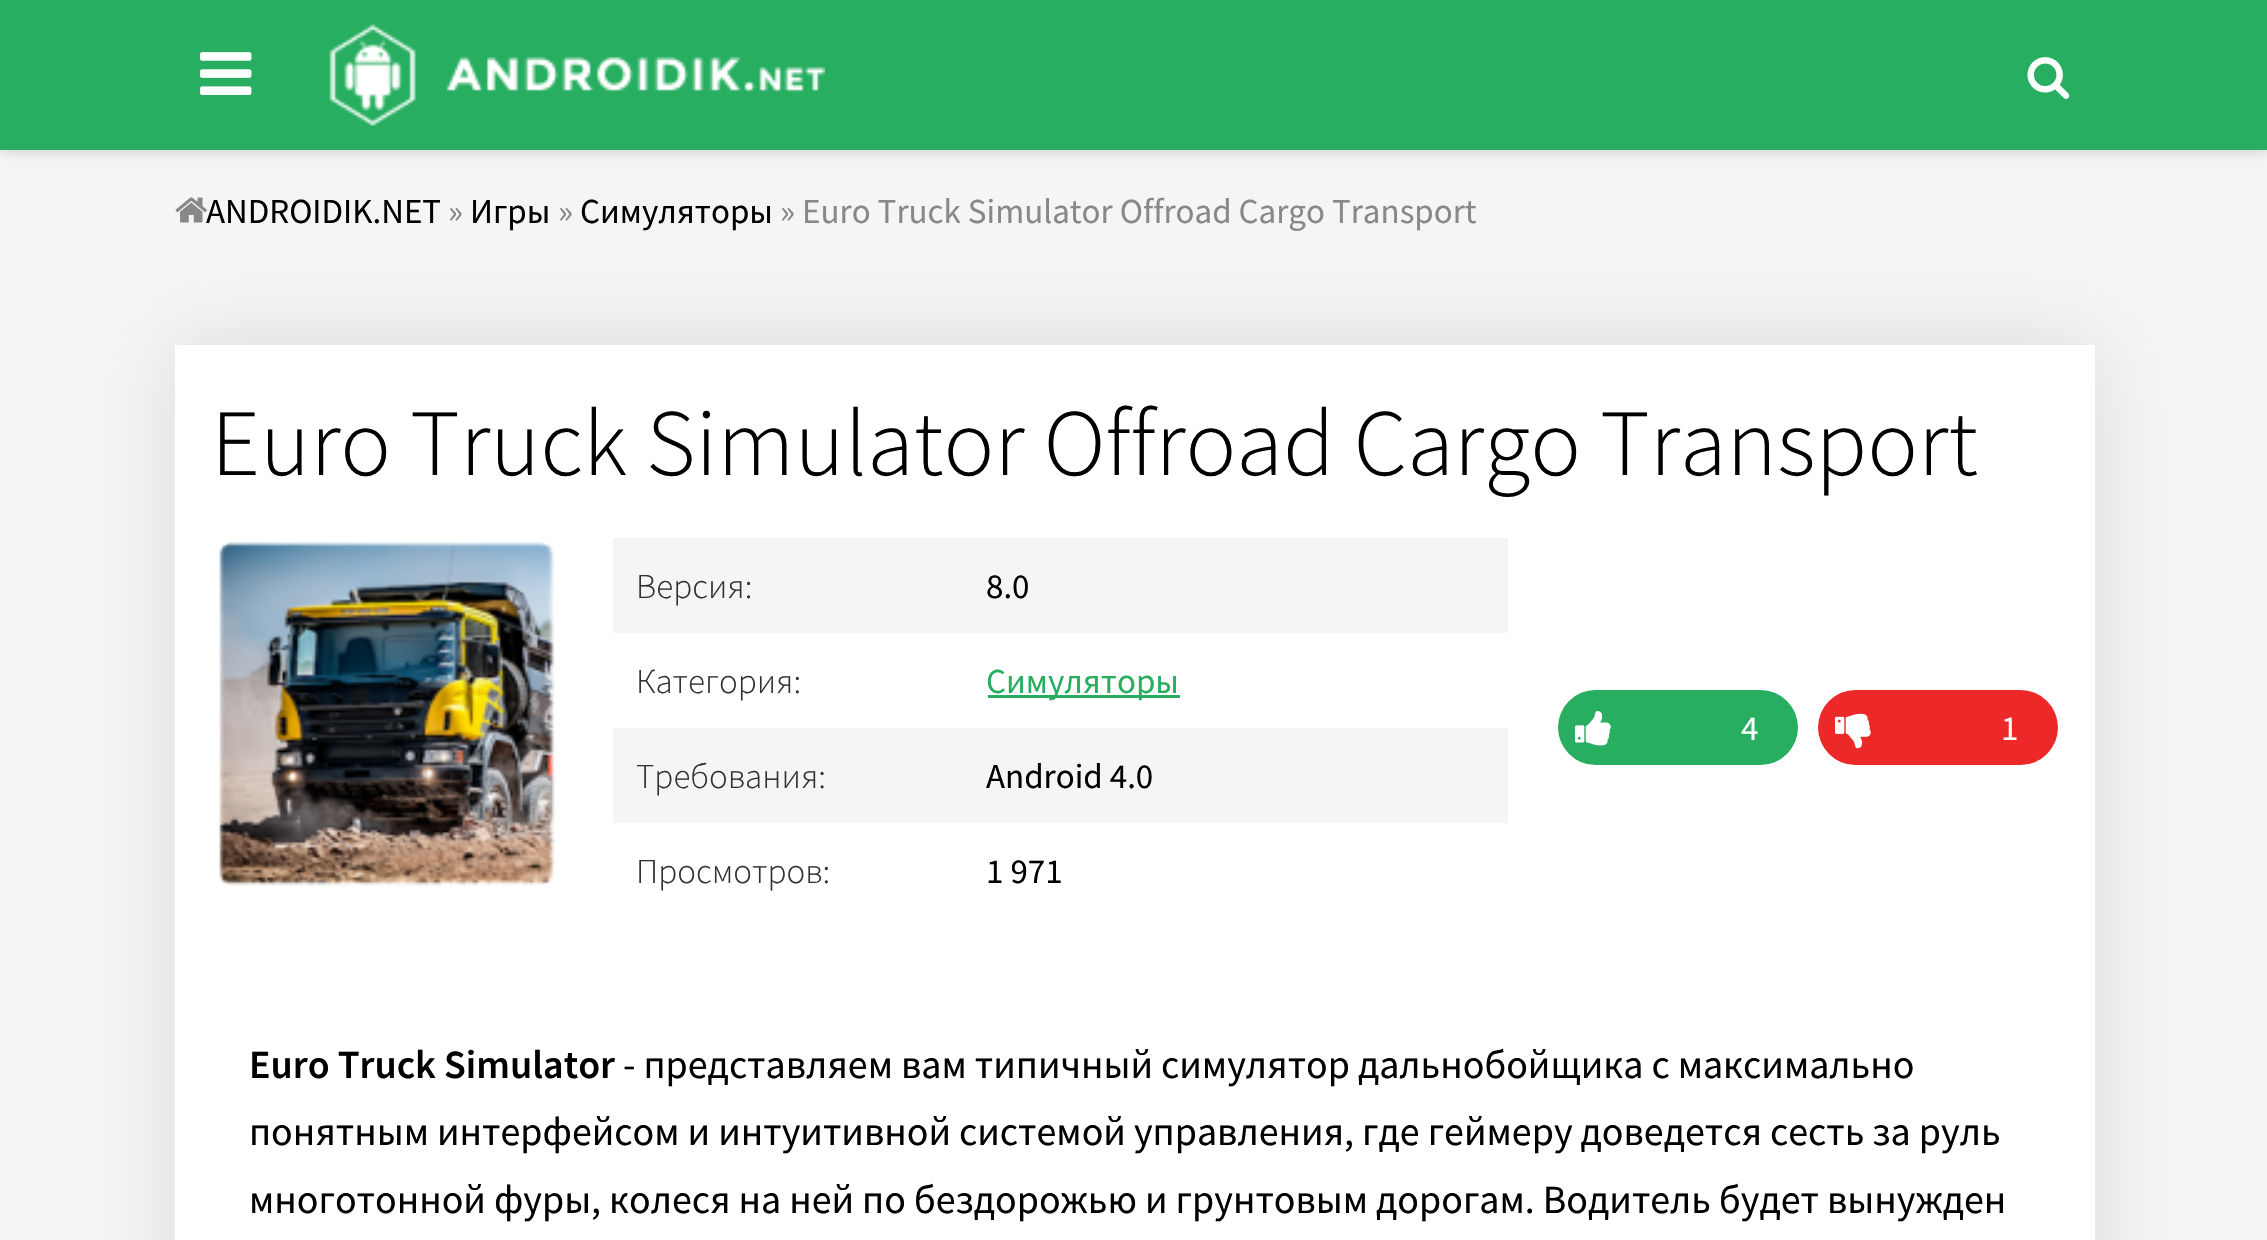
#include "include/core/SkBlurTypes.h"
#include "include/core/SkCanvas.h"
#include "include/core/SkData.h"
#include "include/core/SkFont.h"
#include "include/core/SkFontMgr.h"
#include "include/core/SkImage.h"
#include "include/core/SkMaskFilter.h"
#include "include/core/SkPaint.h"
#include "include/core/SkPathBuilder.h"
#include "include/core/SkTextBlob.h"
#include "include/effects/SkDashPathEffect.h"
#include "include/effects/SkGradientShader.h"
#include "include/utils/SkParsePath.h"

extern sk_sp<SkFontMgr> fontMgr;

static SkFont font(const char* family, int weight, float size, bool italic = false) {
    SkFontStyle style(weight, SkFontStyle::kNormal_Width,
        italic ? SkFontStyle::kItalic_Slant : SkFontStyle::kUpright_Slant);
    SkFont result(fontMgr->matchFamilyStyle(family, style), size);
    result.setSubpixel(true);
    return result;
}

static void drawLabel(SkCanvas* canvas, const char* s, float x, float y, const SkFont& font, SkColor color) {
    SkPaint ink(SkColor4f::FromColor(color));
    ink.setAntiAlias(true);
    canvas->drawString(s, x, y, font, ink);
}

static void fillRect(SkCanvas* canvas, float x, float y, float w, float h, SkColor color) {
    SkPaint ink(SkColor4f::FromColor(color));
    ink.setAntiAlias(true);
    canvas->drawRect(SkRect::MakeXYWH(x, y, w, h), ink);
}

static void fillRRect(SkCanvas* canvas, float x, float y, float w, float h, float radius, SkColor color) {
    SkPaint ink(SkColor4f::FromColor(color));
    ink.setAntiAlias(true);
    canvas->drawRoundRect(SkRect::MakeXYWH(x, y, w, h), radius, radius, ink);
}

static void drawPhoto(SkCanvas* canvas, const char* path, float x, float y, float w, float h) {
    auto image = SkImages::DeferredFromEncodedData(SkData::MakeFromFileName(path));
    canvas->drawImageRect(image, SkRect::MakeXYWH(x, y, w, h), SkSamplingOptions());
}

void draw(SkCanvas* canvas) {
    SkPaint paint;
    paint.setAntiAlias(true);
    canvas->clear(0xFFF5F5F5);
    paint.setColor(0x33000000);
    paint.setMaskFilter(SkMaskFilter::MakeBlur(kNormal_SkBlurStyle, 6));
    canvas->drawRect(SkRect::MakeXYWH(0, 0, 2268, 150), paint);
    paint.setMaskFilter(nullptr);
    fillRect(canvas, 0, 0, 2267, 150, 0xFF27AE60);
    drawPhoto(canvas, "assets/img1.png", 200, 52, 52, 43);
    drawPhoto(canvas, "assets/img2.png", 329, 24, 496, 102);
    drawPhoto(canvas, "assets/img3.png", 2027, 57, 43, 42);
    drawPhoto(canvas, "assets/img4.png", 175, 197, 32, 26);
    SkFont font1 = font("Source Sans Pro", 400, 35);
    drawLabel(canvas, "ANDROIDIK.NET", 206, 223, font1, 0xFF000000);
    drawLabel(canvas, "»", 448, 223, font1, 0xFF888888);
    drawLabel(canvas, "Игры", 470, 223, font1, 0xFF000000);
    drawLabel(canvas, "»", 558, 223, font1, 0xFF888888);
    drawLabel(canvas, "Симуляторы", 580, 223, font1, 0xFF000000);
    drawLabel(canvas, "» Euro Truck Simulator Offroad Cargo Transport", 780, 223, font1, 0xFF888888);
    paint.setColor(0x1A000000);
    paint.setMaskFilter(SkMaskFilter::MakeBlur(kNormal_SkBlurStyle, 37.5f));
    canvas->drawRect(SkRect::MakeXYWH(175, 345, 1920, 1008), paint);
    paint.setMaskFilter(nullptr);
    fillRect(canvas, 175, 345, 1920, 895, 0xFFFFFFFF);
    SkFont font2 = font("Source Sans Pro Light", 300, 95);
    drawLabel(canvas, "Euro Truck Simulator Offroad Cargo Transport", 211, 475, font2, 0xFF000000);
    drawPhoto(canvas, "assets/img5.png", 219, 542, 336, 344);
    fillRect(canvas, 613, 538, 895, 95, 0xFFF5F5F5);
    SkFont font3 = font("Source Sans Pro Light", 300, 35);
    drawLabel(canvas, "Версия:", 636, 598, font3, 0xFF313131);
    drawLabel(canvas, "8.0", 986, 598, font1, 0xFF000000);
    drawLabel(canvas, "Категория:", 636, 693, font3, 0xFF313131);
    fillRect(canvas, 988, 695, 192, 3, 0xFF27AE60);
    drawLabel(canvas, "Симуляторы", 986, 693, font1, 0xFF27AE60);
    fillRect(canvas, 613, 728, 895, 95, 0xFFF5F5F5);
    drawLabel(canvas, "Требования:", 636, 788, font3, 0xFF313131);
    drawLabel(canvas, "Android 4.0", 986, 788, font1, 0xFF000000);
    drawLabel(canvas, "Просмотров:", 636, 883, font3, 0xFF313131);
    drawLabel(canvas, "1 971", 986, 883, font1, 0xFF000000);
    fillRRect(canvas, 1558, 690, 240, 75, 37.5f, 0xFF27AE60);
    drawPhoto(canvas, "assets/img6.png", 1575, 711, 36, 35);
    drawLabel(canvas, "4", 1741, 740, font1, 0xFFFFFFFF);
    fillRRect(canvas, 1818, 690, 240, 75, 37.5f, 0xFFEC2828);
    drawPhoto(canvas, "assets/img7.png", 1835, 713, 36, 36);
    drawLabel(canvas, "1", 2001, 740, font1, 0xFFFFFFFF);
    SkFont font4 = font("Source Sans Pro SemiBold", 600, 40);
    drawLabel(canvas, "Euro Truck Simulator", 249, 1078, font4, 0xFF000000);
    SkFont font5 = font("Source Sans Pro", 400, 40);
    drawLabel(canvas, "- представляем вам типичный симулятор дальнобойщика с максимально", 623, 1078, font5, 0xFF000000);
    drawLabel(canvas, "понятным интерфейсом и интуитивной системой управления, где геймеру доведется сесть за руль", 249, 1145, font5, 0xFF000000);
    drawLabel(canvas, "многотонной фуры, колеся на ней по бездорожью и грунтовым дорогам. Водитель будет вынужден", 249, 1213, font5, 0xFF000000);
}
